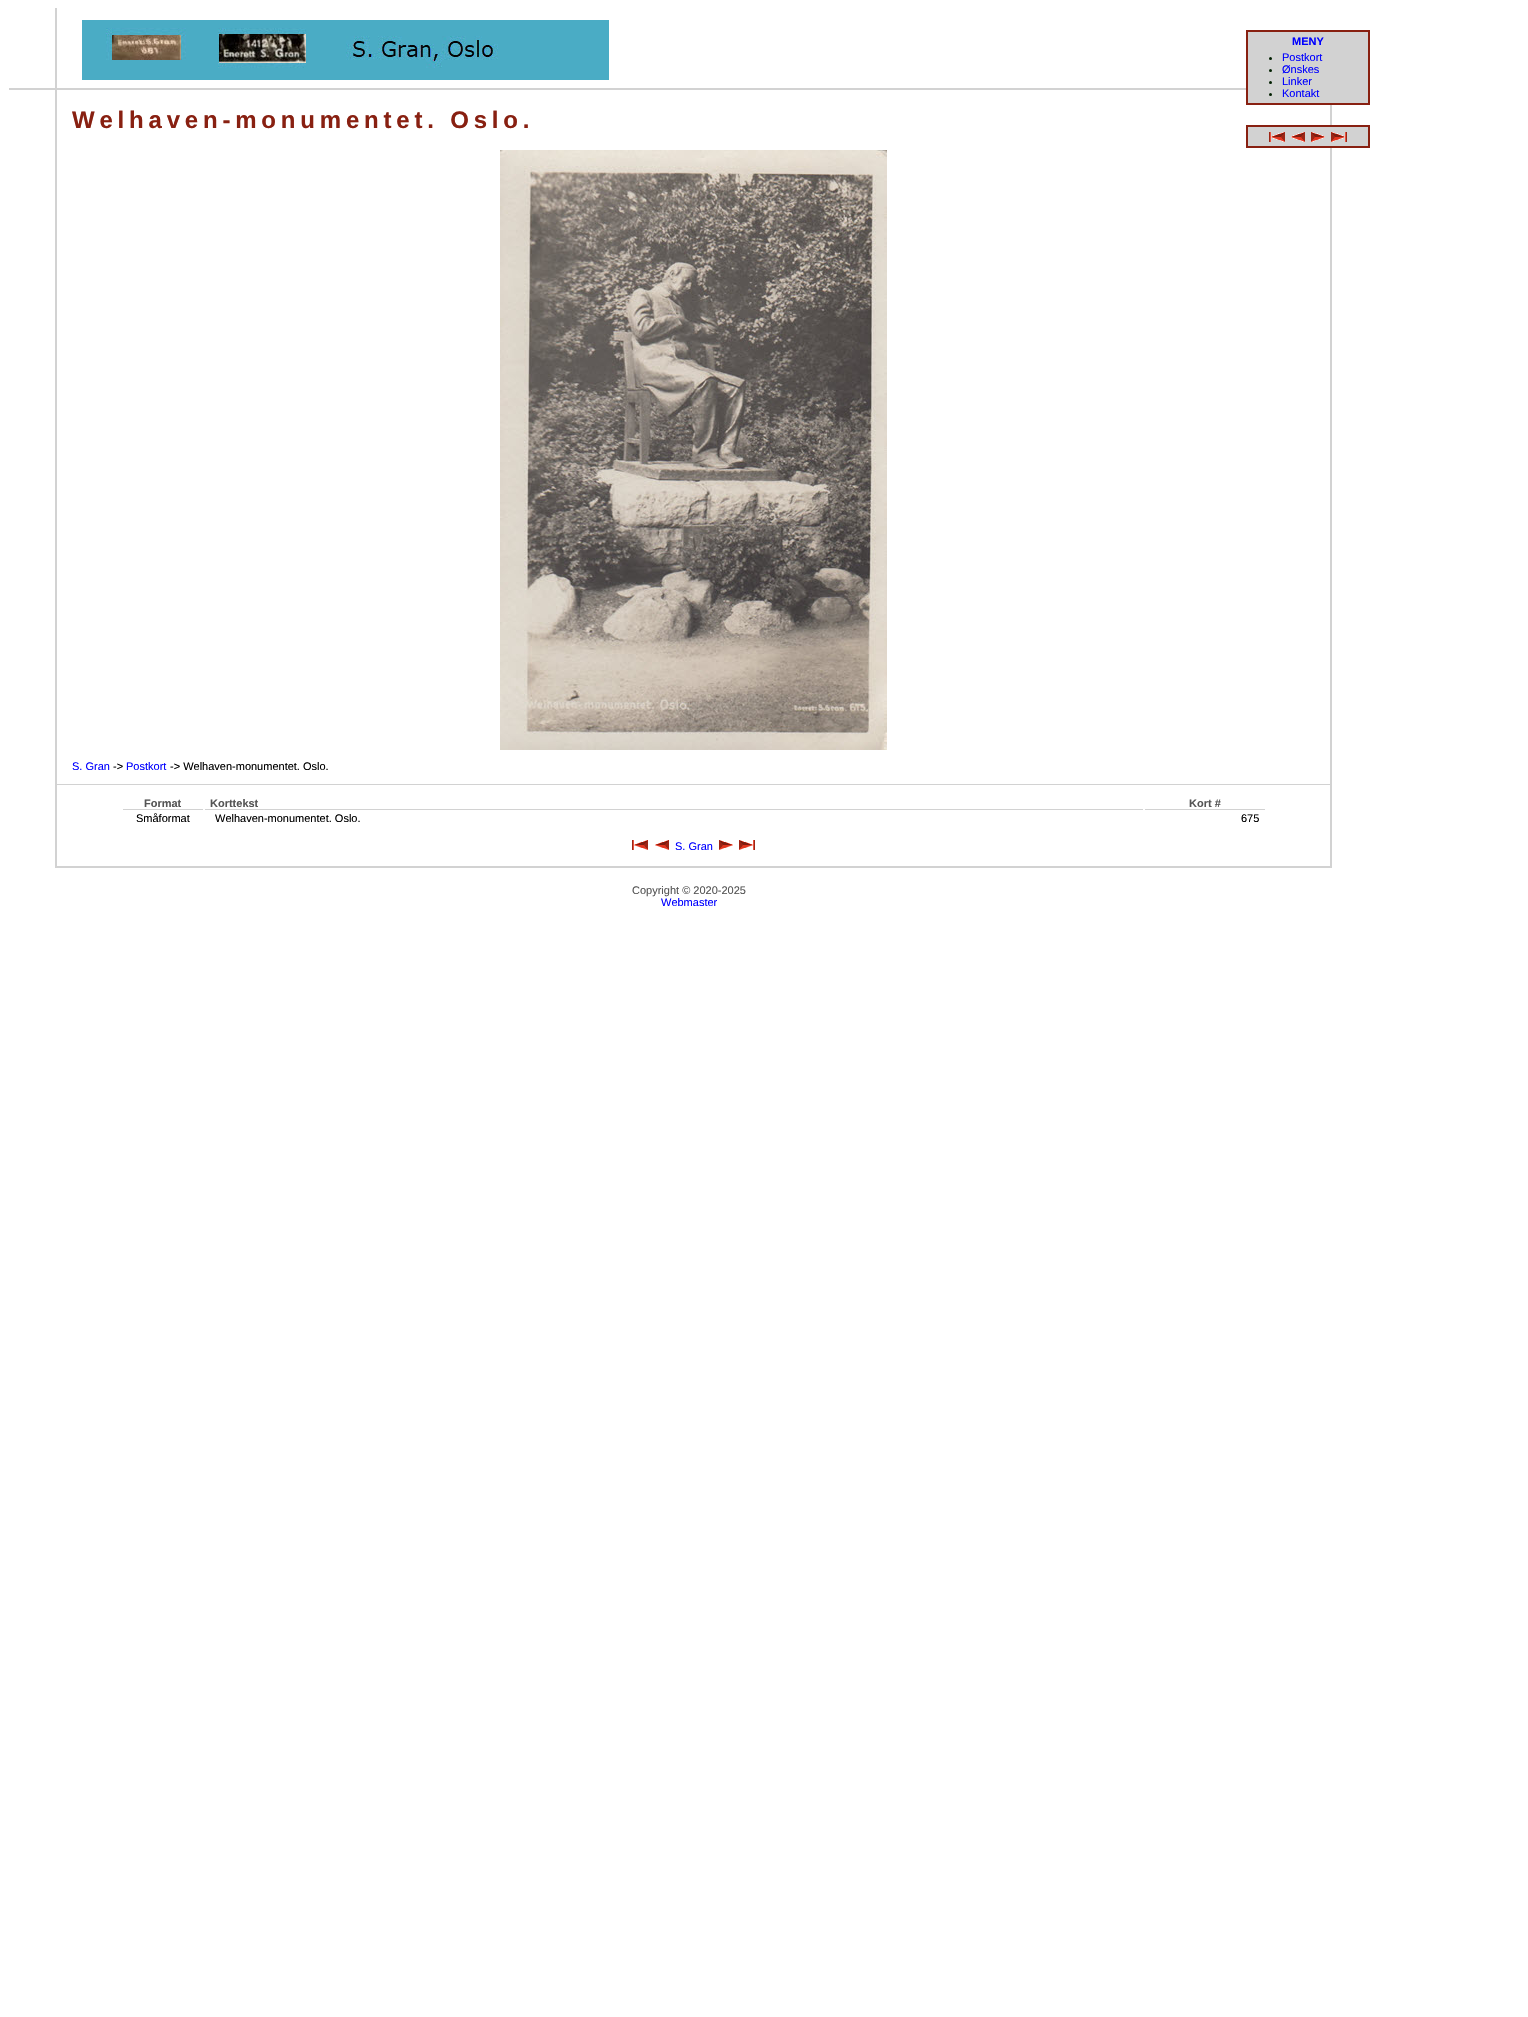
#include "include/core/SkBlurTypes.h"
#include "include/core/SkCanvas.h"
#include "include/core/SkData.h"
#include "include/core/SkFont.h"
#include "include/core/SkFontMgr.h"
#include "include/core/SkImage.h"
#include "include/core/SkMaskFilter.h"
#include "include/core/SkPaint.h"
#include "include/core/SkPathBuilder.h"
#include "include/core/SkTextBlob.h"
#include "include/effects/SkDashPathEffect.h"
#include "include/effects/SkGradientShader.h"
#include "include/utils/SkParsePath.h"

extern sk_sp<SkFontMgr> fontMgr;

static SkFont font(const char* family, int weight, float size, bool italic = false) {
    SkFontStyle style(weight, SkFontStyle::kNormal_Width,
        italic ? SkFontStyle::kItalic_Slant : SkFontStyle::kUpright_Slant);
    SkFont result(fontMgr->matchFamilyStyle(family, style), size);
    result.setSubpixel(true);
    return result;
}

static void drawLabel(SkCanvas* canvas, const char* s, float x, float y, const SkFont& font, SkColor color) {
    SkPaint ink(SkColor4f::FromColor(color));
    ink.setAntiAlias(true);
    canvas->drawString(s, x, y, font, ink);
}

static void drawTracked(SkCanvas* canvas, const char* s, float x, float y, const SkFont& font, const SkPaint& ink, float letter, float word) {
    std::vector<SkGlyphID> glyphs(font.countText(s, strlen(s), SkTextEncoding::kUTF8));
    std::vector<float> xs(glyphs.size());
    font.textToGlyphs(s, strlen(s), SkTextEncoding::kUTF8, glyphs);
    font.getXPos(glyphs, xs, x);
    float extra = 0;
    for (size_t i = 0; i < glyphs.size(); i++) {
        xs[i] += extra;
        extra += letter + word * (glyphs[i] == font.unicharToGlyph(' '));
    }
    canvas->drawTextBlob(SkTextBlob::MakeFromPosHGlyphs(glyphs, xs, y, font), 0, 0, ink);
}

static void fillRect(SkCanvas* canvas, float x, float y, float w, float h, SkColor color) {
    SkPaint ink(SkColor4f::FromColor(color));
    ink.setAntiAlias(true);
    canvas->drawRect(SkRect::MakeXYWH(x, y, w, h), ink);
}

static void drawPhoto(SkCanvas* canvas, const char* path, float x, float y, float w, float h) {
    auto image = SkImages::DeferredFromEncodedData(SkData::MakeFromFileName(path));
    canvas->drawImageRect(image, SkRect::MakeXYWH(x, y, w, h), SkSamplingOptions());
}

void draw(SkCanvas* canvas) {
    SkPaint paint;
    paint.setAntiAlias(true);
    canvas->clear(0xFFFFFFFF);
    paint.setStroke(true);
    paint.setStrokeWidth(2);
    paint.setColor(0xFFD2D2D2);
    canvas->drawRect(SkRect::MakeXYWH(56, 89, 1275, 778), paint);
    fillRect(canvas, 55, 8, 2, 82, 0xFFD2D2D2);
    fillRect(canvas, 9, 88, 48, 2, 0xFFD2D2D2);
    drawPhoto(canvas, "assets/img1.png", 82, 20, 527, 60);
    paint.setStroke(false);
    canvas->drawRect(SkRect::MakeXYWH(1247, 31, 122, 73), paint);
    paint.setStroke(true);
    paint.setColor(0xFF882011);
    canvas->drawRect(SkRect::MakeXYWH(1247, 31, 122, 73), paint);
    SkFont font1 = font("Liberation Sans", 700, 11);
    drawLabel(canvas, "MENY", 1292, 45, font1, 0xFF0000FF);
    paint.setStroke(false);
    paint.setColor(0xFF012000);
    canvas->drawCircle(1270.5f, 58.5f, 1.5f, paint);
    SkFont font2 = font("Liberation Sans", 400, 11);
    drawLabel(canvas, "Postkort", 1282, 61, font2, 0xFF0000FF);
    canvas->drawCircle(1270.5f, 70.5f, 1.5f, paint);
    drawLabel(canvas, "Ønskes", 1282, 73, font2, 0xFF0000FF);
    canvas->drawCircle(1270.5f, 82.5f, 1.5f, paint);
    drawLabel(canvas, "Linker", 1282, 85, font2, 0xFF0000FF);
    canvas->drawCircle(1270.5f, 94.5f, 1.5f, paint);
    drawLabel(canvas, "Kontakt", 1282, 97, font2, 0xFF0000FF);
    paint.setColor(0xFFD2D2D2);
    canvas->drawRect(SkRect::MakeXYWH(1247, 126, 122, 21), paint);
    paint.setStroke(true);
    paint.setColor(0xFF882011);
    canvas->drawRect(SkRect::MakeXYWH(1247, 126, 122, 21), paint);
    drawPhoto(canvas, "assets/img2.png", 1269, 132, 16, 10);
    drawPhoto(canvas, "assets/img3.png", 1291, 132, 14, 10);
    drawPhoto(canvas, "assets/img4.png", 1311, 132, 14, 10);
    drawPhoto(canvas, "assets/img5.png", 1331, 132, 16, 10);
    drawLabel(canvas, "S. Gran", 72, 770, font2, 0xFF0000FF);
    drawLabel(canvas, "->", 113, 770, font2, 0xFF000000);
    drawLabel(canvas, "Postkort", 126, 770, font2, 0xFF0000FF);
    drawLabel(canvas, "-> Welhaven-monumentet. Oslo.", 170, 770, font2, 0xFF000000);
    fillRect(canvas, 57, 784, 1273, 1, 0xFFD2D2D2);
    fillRect(canvas, 123, 809, 80, 1, 0xFFD2D2D2);
    drawLabel(canvas, "Format", 144, 807, font1, 0xFF555555);
    fillRect(canvas, 205, 809, 938, 1, 0xFFD2D2D2);
    drawLabel(canvas, "Korttekst", 210, 807, font1, 0xFF555555);
    fillRect(canvas, 1145, 809, 120, 1, 0xFFD2D2D2);
    drawLabel(canvas, "Kort #", 1189, 807, font1, 0xFF555555);
    drawLabel(canvas, "Småformat", 136, 822, font2, 0xFF000000);
    drawLabel(canvas, "Welhaven-monumentet. Oslo.", 215, 822, font2, 0xFF000000);
    drawLabel(canvas, "675", 1241, 822, font2, 0xFF000000);
    drawPhoto(canvas, "assets/img6.png", 632, 840, 16, 10);
    drawPhoto(canvas, "assets/img7.png", 655, 840, 14, 10);
    drawLabel(canvas, "S. Gran", 675, 850, font2, 0xFF0000FF);
    drawPhoto(canvas, "assets/img8.png", 719, 840, 14, 10);
    drawPhoto(canvas, "assets/img9.png", 739, 840, 16, 10);
    SkFont font3 = font("Liberation Sans", 700, 24);
    paint.setStroke(false);
    drawTracked(canvas, "Welhaven-monumentet. Oslo.", 72, 128, font3, paint, 4.8f, 0);
    drawPhoto(canvas, "assets/img10.png", 500, 150, 387, 600);
    drawLabel(canvas, "Copyright © 2020-2025", 632, 894, font2, 0xFF555555);
    drawLabel(canvas, "Webmaster", 661, 906, font2, 0xFF0000FF);
}
